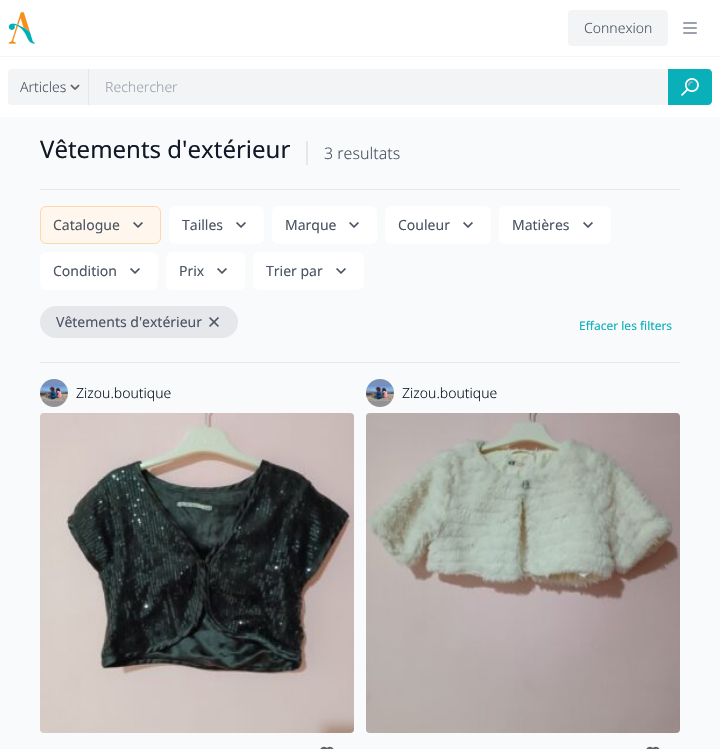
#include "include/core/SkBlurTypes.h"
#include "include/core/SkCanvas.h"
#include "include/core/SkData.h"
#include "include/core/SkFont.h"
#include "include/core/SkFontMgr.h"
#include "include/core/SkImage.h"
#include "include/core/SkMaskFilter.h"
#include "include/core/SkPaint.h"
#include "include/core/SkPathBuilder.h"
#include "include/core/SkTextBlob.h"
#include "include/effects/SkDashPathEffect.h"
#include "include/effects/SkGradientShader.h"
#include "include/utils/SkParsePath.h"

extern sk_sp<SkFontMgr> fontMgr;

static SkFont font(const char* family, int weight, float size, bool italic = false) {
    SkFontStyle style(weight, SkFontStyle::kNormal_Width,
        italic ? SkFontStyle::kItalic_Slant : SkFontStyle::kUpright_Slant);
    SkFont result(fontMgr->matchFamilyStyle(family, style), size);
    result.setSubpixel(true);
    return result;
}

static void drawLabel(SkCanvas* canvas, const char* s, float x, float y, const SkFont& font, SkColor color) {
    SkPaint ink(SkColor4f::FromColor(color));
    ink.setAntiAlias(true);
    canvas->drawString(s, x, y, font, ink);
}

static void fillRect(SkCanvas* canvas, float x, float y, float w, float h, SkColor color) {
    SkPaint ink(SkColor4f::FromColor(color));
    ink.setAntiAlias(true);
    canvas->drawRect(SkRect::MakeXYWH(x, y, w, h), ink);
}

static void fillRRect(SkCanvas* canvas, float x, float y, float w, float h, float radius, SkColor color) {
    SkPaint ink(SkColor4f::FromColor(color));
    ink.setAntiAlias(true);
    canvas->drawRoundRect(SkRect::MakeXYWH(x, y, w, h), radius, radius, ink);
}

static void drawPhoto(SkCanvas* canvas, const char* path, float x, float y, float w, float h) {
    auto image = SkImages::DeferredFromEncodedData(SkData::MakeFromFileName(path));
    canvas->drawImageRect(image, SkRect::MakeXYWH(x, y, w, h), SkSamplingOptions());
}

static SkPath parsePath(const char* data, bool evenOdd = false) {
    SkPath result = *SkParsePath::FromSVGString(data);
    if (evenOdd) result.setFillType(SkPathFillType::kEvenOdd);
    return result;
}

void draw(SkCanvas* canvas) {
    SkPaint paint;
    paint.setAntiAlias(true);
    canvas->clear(0xFFF9FAFB);
    fillRect(canvas, 0, 0, 720, 117, 0xFFFFFFFF);
    drawPhoto(canvas, "assets/img1.png", 8, 12, 27, 32);
    fillRRect(canvas, 568, 10, 100, 36, 4, 0xFFF3F4F6);
    SkFont font1 = font("Noto Sans", 300, 14);
    drawLabel(canvas, "Connexion", 584, 33, font1, 0xFF4B5563);
    drawPhoto(canvas, "assets/img2.png", 683, 22, 14, 12);
    fillRect(canvas, 0, 56, 720, 1, 0xFFF3F4F6);
    fillRRect(canvas, 8, 69, 704, 36, 4, 0xFFF3F4F6);
    fillRect(canvas, 88, 69, 1, 36, 0xFFE5E7EB);
    drawLabel(canvas, "Articles", 20, 92, font1, 0xFF4B5563);
    drawPhoto(canvas, "assets/img3.png", 70, 84, 10, 6);
    drawLabel(canvas, "Rechercher", 105, 92, font1, 0xFF9CA3AF);
    paint.setColor(0xFF09B0BA);
    canvas->drawPath(parsePath("M668 69H708C710 69 712 71 712 73V101C712 103 710 105 708 105H668Z"), paint);
    drawPhoto(canvas, "assets/img4.png", 681, 78, 18, 18);
    SkFont font2 = font("Noto Sans", 400, 24);
    drawLabel(canvas, "Vêtements d'extérieur", 40, 158, font2, 0xFF111827);
    fillRect(canvas, 306, 141, 2, 24, 0xFFE5E7EB);
    SkFont font3 = font("Noto Sans", 300, 16);
    drawLabel(canvas, "3 resultats", 324, 159, font3, 0xFF4B5563);
    fillRect(canvas, 40, 189, 640, 1, 0xFFE5E7EB);
    paint.setColor(0xFFFFF7ED);
    canvas->drawRoundRect(SkRect::MakeXYWH(40.5f, 206.5f, 120, 37), 5.5f, 5.5f, paint);
    paint.setStroke(true);
    paint.setStrokeWidth(1);
    paint.setColor(0xFFFED7AA);
    canvas->drawRoundRect(SkRect::MakeXYWH(40.5f, 206.5f, 120, 37), 5.5f, 5.5f, paint);
    SkFont font4 = font("Noto Sans", 400, 14);
    drawLabel(canvas, "Catalogue", 53, 230, font4, 0xFF4B5563);
    drawPhoto(canvas, "assets/img5.png", 133, 222, 10, 6);
    fillRRect(canvas, 169, 206, 95, 38, 6, 0xFFFFFFFF);
    drawLabel(canvas, "Tailles", 182, 230, font4, 0xFF4B5563);
    drawPhoto(canvas, "assets/img6.png", 236, 222, 10, 6);
    fillRRect(canvas, 272, 206, 105, 38, 6, 0xFFFFFFFF);
    drawLabel(canvas, "Marque", 285, 230, font4, 0xFF4B5563);
    drawPhoto(canvas, "assets/img6.png", 349, 222, 10, 6);
    fillRRect(canvas, 385, 206, 106, 38, 6, 0xFFFFFFFF);
    drawLabel(canvas, "Couleur", 398, 230, font4, 0xFF4B5563);
    drawPhoto(canvas, "assets/img6.png", 463, 222, 10, 6);
    fillRRect(canvas, 499, 206, 112, 38, 6, 0xFFFFFFFF);
    drawLabel(canvas, "Matières", 512, 230, font4, 0xFF4B5563);
    drawPhoto(canvas, "assets/img6.png", 583, 222, 10, 6);
    fillRRect(canvas, 40, 252, 118, 38, 6, 0xFFFFFFFF);
    drawLabel(canvas, "Condition", 53, 276, font4, 0xFF4B5563);
    drawPhoto(canvas, "assets/img6.png", 130, 268, 10, 6);
    fillRRect(canvas, 166, 252, 79, 38, 6, 0xFFFFFFFF);
    drawLabel(canvas, "Prix", 179, 276, font4, 0xFF4B5563);
    drawPhoto(canvas, "assets/img6.png", 217, 268, 10, 6);
    fillRRect(canvas, 253, 252, 111, 38, 6, 0xFFFFFFFF);
    drawLabel(canvas, "Trier par", 266, 276, font4, 0xFF4B5563);
    drawPhoto(canvas, "assets/img6.png", 336, 268, 10, 6);
    fillRRect(canvas, 40, 306, 198, 32, 16, 0xFFE5E7EB);
    drawLabel(canvas, "Vêtements d'extérieur", 56, 327, font4, 0xFF4B5563);
    drawPhoto(canvas, "assets/img7.png", 209, 317, 10, 10);
    SkFont font5 = font("Noto Sans", 400, 12);
    drawLabel(canvas, "Effacer les filters", 579, 330, font5, 0xFF09B0BA);
    fillRect(canvas, 40, 362, 640, 1, 0xFFE5E7EB);
    drawPhoto(canvas, "assets/img8.png", 40, 379, 28, 28);
    drawLabel(canvas, "Zizou.boutique", 76, 398, font1, 0xFF111827);
    drawPhoto(canvas, "assets/img9.png", 40, 413, 314, 320);
    drawPhoto(canvas, "assets/img10.png", 320, 746, 14, 3);
    drawPhoto(canvas, "assets/img8.png", 366, 379, 28, 28);
    drawLabel(canvas, "Zizou.boutique", 402, 398, font1, 0xFF111827);
    drawPhoto(canvas, "assets/img11.png", 366, 413, 314, 320);
    drawPhoto(canvas, "assets/img10.png", 646, 746, 14, 3);
}
